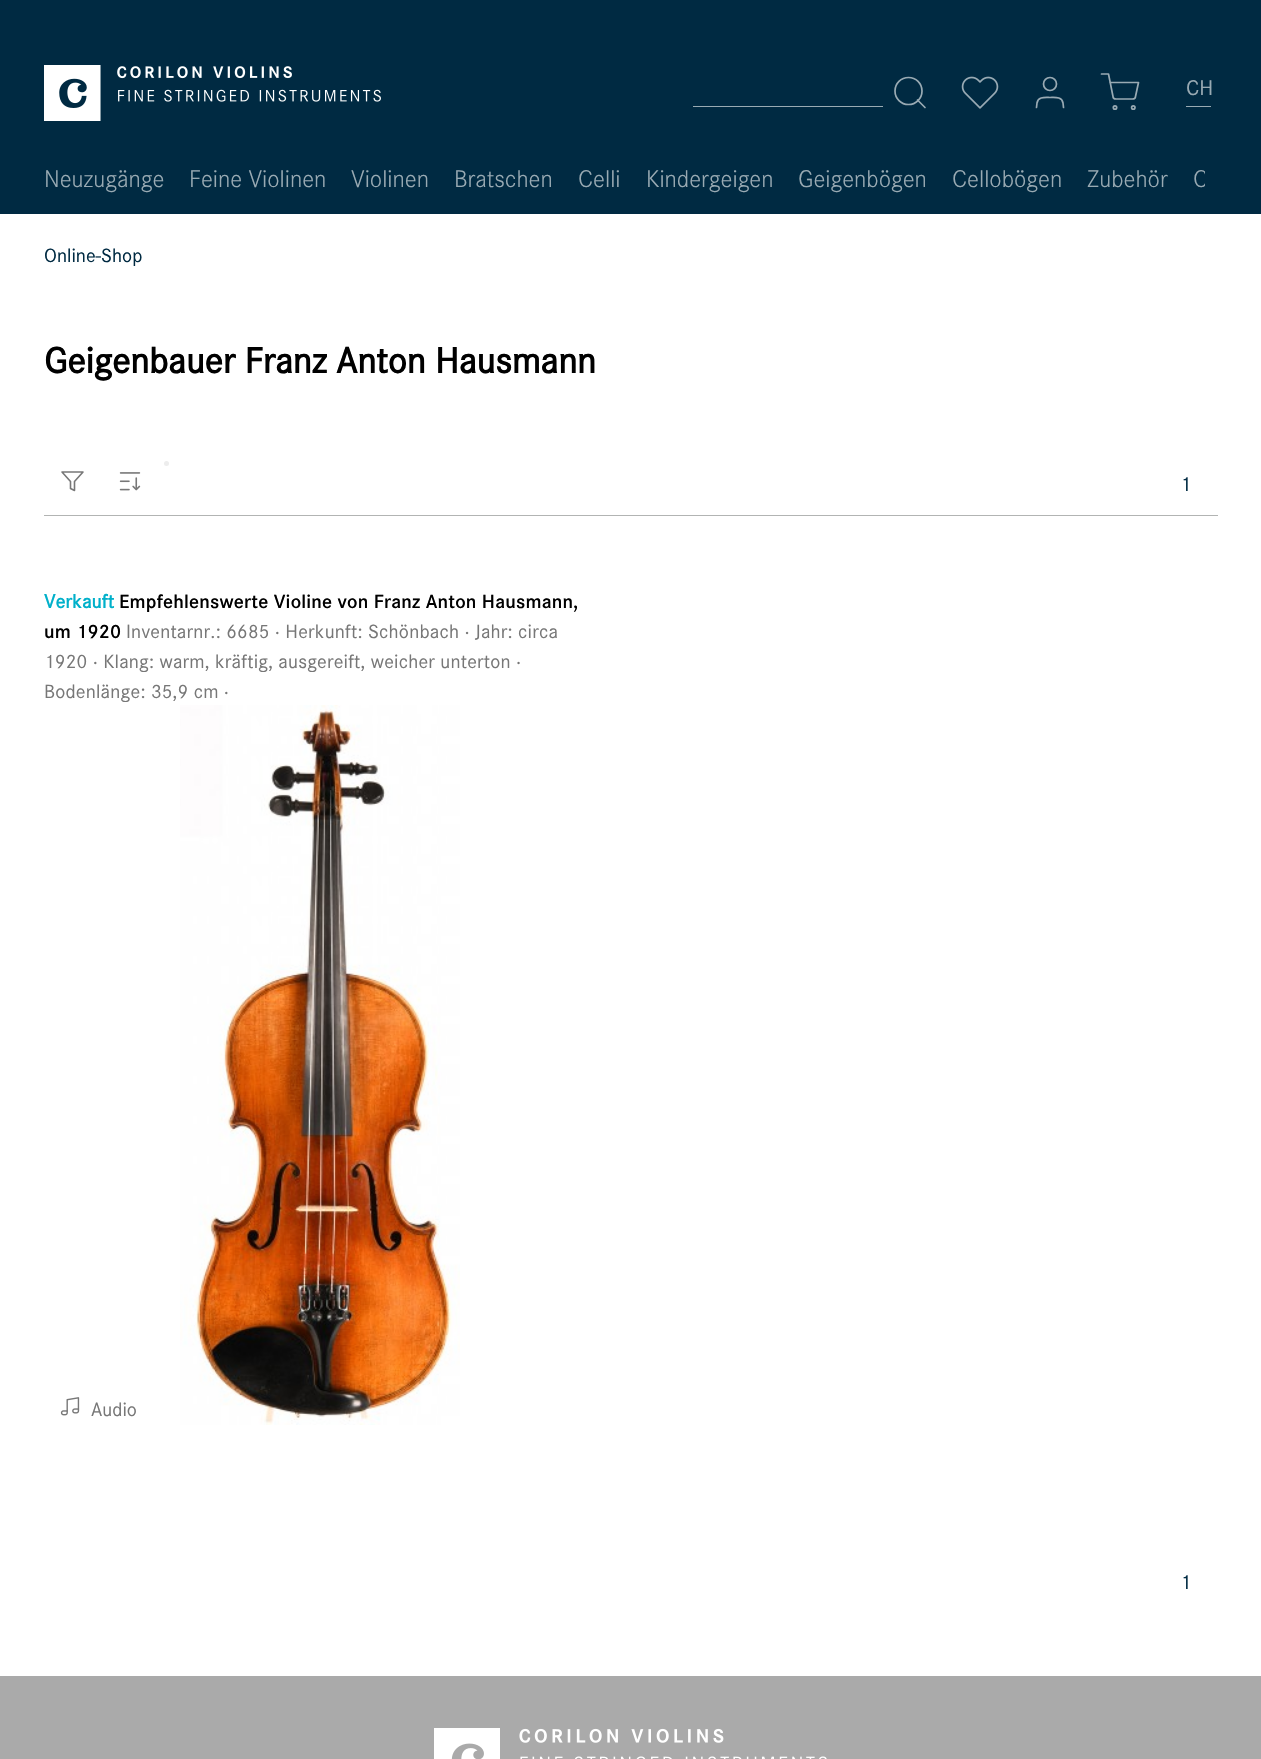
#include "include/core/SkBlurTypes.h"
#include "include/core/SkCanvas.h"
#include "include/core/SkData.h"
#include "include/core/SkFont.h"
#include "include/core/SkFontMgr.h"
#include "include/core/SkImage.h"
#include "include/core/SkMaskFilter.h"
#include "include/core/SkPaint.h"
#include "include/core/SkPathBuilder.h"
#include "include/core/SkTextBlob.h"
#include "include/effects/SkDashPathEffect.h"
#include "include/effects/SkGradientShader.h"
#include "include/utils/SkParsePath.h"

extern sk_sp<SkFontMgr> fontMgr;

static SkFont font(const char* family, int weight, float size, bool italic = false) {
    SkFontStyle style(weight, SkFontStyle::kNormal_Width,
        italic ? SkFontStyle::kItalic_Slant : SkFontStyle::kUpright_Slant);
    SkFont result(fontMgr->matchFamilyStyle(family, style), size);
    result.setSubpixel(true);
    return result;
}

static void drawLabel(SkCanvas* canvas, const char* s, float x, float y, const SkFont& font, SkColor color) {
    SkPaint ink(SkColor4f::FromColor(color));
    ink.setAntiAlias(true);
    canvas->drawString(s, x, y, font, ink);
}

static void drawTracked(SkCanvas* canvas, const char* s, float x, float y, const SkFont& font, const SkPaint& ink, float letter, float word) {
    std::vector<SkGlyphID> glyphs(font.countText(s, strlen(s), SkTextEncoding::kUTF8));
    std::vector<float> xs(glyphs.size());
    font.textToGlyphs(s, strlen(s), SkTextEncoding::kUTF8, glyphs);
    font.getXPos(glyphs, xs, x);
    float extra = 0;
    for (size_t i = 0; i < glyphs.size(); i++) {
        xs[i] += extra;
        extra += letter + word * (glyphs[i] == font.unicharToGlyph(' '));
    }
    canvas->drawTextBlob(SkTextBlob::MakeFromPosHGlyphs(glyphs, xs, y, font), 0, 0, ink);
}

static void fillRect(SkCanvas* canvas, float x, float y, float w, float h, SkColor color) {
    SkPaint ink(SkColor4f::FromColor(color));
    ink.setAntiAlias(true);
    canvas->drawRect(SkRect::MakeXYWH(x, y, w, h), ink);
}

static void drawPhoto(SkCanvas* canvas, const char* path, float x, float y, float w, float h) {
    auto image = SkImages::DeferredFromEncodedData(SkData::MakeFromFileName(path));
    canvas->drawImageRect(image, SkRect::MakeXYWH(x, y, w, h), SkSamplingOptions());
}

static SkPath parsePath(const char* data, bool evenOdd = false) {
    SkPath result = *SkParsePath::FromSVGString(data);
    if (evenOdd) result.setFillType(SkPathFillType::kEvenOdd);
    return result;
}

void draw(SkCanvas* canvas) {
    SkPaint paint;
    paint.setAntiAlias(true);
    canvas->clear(0xFFFFFFFF);
    fillRect(canvas, 0, 0, 1261, 214, 0xFF002A42);
    drawPhoto(canvas, "assets/img1.png", 44, 65, 337, 56);
    fillRect(canvas, 693, 106, 190, 1, 0xFF99AAB3);
    paint.setStroke(true);
    paint.setStrokeWidth(1.7f);
    paint.setColor(0xFF99AAB3);
    canvas->drawCircle(908.5f, 91, 13.5f, paint);
    paint.setStrokeCap(SkPaint::kRound_Cap);
    paint.setStrokeJoin(SkPaint::kRound_Join);
    canvas->drawPath(parsePath("M925 107.5L917.5 100"), paint);
    drawPhoto(canvas, "assets/img2.png", 961, 76, 38, 33);
    paint.setStrokeCap(SkPaint::kButt_Cap);
    paint.setStrokeJoin(SkPaint::kMiter_Join);
    canvas->drawCircle(1050, 84, 6.5f, paint);
    paint.setStrokeCap(SkPaint::kRound_Cap);
    paint.setStrokeJoin(SkPaint::kRound_Join);
    canvas->drawPath(parsePath("M1063.5 107.5L1063 103C1062 96.5 1055 97.5 1050 97.5C1045 97.5 1038 96.5 1037 103L1036.5 107.5"), paint);
    canvas->drawPath(parsePath("M1101.5 74H1108.5L1113 96.5C1113 98 1114.5 99 1116 99H1132.5C1134 99 1135.5 98 1135.5 96.5L1138.5 82.5H1110"), paint);
    paint.setStrokeCap(SkPaint::kButt_Cap);
    paint.setStrokeJoin(SkPaint::kMiter_Join);
    canvas->drawCircle(1115, 107.5f, 1.7f, paint);
    canvas->drawCircle(1133.3f, 107.5f, 1.7f, paint);
    SkFont font1 = font("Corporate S", 400, 22);
    drawLabel(canvas, "CH", 1186, 95, font1, 0xFF99AAB3);
    fillRect(canvas, 1186, 106, 25, 1, 0xFF99AAB3);
    SkFont font2 = font("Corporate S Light", 300, 25);
    drawLabel(canvas, "Neuzugänge", 44, 187, font2, 0xFF99AAB3);
    drawLabel(canvas, "Feine Violinen", 189, 187, font2, 0xFF99AAB3);
    drawLabel(canvas, "Violinen", 351, 187, font2, 0xFF99AAB3);
    drawLabel(canvas, "Bratschen", 454, 187, font2, 0xFF99AAB3);
    drawLabel(canvas, "Celli", 578, 187, font2, 0xFF99AAB3);
    drawLabel(canvas, "Kindergeigen", 646, 187, font2, 0xFF99AAB3);
    drawLabel(canvas, "Geigenbögen", 798, 187, font2, 0xFF99AAB3);
    drawLabel(canvas, "Cellobögen", 952, 187, font2, 0xFF99AAB3);
    drawLabel(canvas, "Zubehör", 1087, 187, font2, 0xFF99AAB3);
    canvas->save();
    canvas->clipRect(SkRect::MakeXYWH(44, 141, 1161, 73));
    drawLabel(canvas, "C", 1193, 187, font2, 0xFF99AAB3);
    canvas->restore();
    SkFont font3 = font("Corporate S", 400, 20);
    drawLabel(canvas, "Online-Shop", 44, 262, font3, 0xFF002A42);
    SkFont font4 = font("Corporate S", 700, 37.5f);
    drawLabel(canvas, "Geigenbauer Franz Anton Hausmann", 44, 373, font4, 0xFF000000);
    fillRect(canvas, 44, 515, 1174, 1, 0xFFB2B4B3);
    paint.setStroke(false);
    paint.setColor(0xFFEDEDED);
    canvas->drawCircle(166.5f, 463.5f, 2.5f, paint);
    paint.setStroke(true);
    paint.setStrokeWidth(1.6f);
    paint.setStrokeCap(SkPaint::kRound_Cap);
    paint.setStrokeJoin(SkPaint::kRound_Join);
    paint.setColor(0xFF777777);
    canvas->drawPath(parsePath("M83 472H62L70.5 481.5V488.5L74.5 490.5V481.5Z"), paint);
    drawPhoto(canvas, "assets/img3.png", 119, 472, 22, 19);
    SkFont font5 = font("Corporate S", 400, 21);
    drawLabel(canvas, "1", 1180, 491, font5, 0xFF002A42);
    SkFont font6 = font("Corporate S", 700, 20);
    paint.setStroke(false);
    paint.setColor(0xFF00B0CA);
    drawTracked(canvas, "Verkauft", 44, 608, font6, paint, 0.2f, 0);
    SkFont font7 = font("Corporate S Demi", 400, 20);
    paint.setColor(0xFF000000);
    drawTracked(canvas, "Empfehlenswerte Violine von Franz Anton Hausmann,", 119, 608, font7, paint, 0.2f, 0);
    drawTracked(canvas, "um 1920", 44, 638, font7, paint, 0.2f, 0);
    paint.setColor(0xFF777777);
    drawTracked(canvas, "Inventarnr.: 6685 · Herkunft: Schönbach · Jahr: circa", 126, 638, font3, paint, 0.2f, 0);
    drawTracked(canvas, "1920 · Klang: warm, kräftig, ausgereift, weicher unterton ·", 44, 668, font3, paint, 0.2f, 0);
    drawTracked(canvas, "Bodenlänge: 35,9 cm ·", 44, 698, font3, paint, 0.2f, 0);
    drawPhoto(canvas, "assets/img4.png", 180, 705, 280, 720);
    drawPhoto(canvas, "assets/img5.png", 60, 1397, 20, 19);
    drawLabel(canvas, "Audio", 91, 1416, font3, 0xFF777777);
    drawLabel(canvas, "1", 1180, 1589, font5, 0xFF002A42);
    fillRect(canvas, 0, 1676, 1261, 83, 0xFFAAAAAA);
    drawPhoto(canvas, "assets/img6.png", 434, 1728, 393, 31);
}
